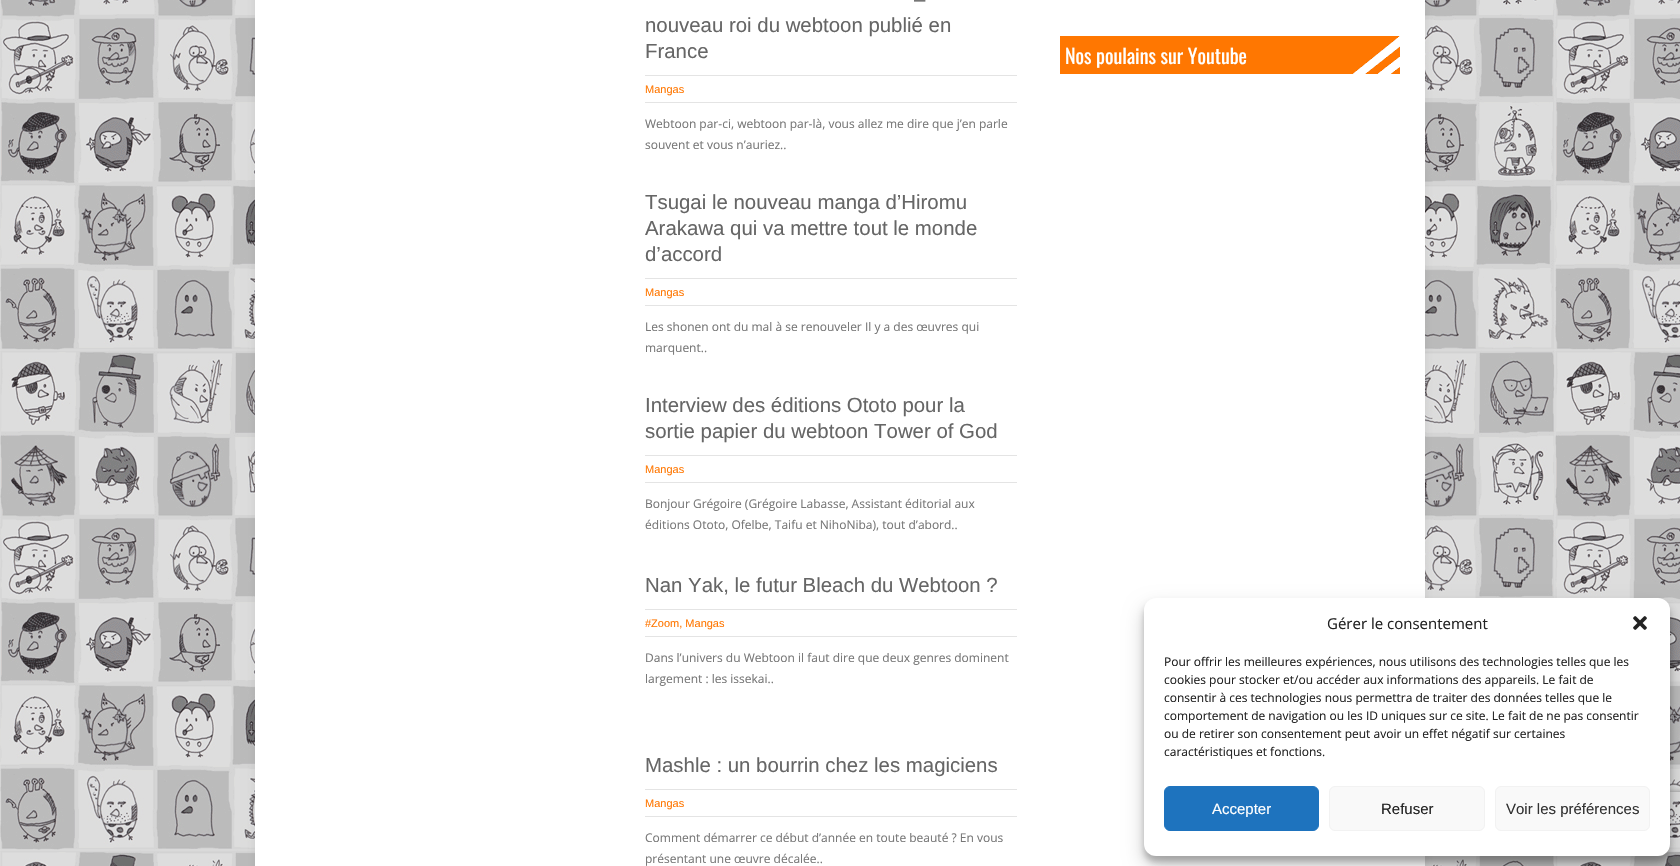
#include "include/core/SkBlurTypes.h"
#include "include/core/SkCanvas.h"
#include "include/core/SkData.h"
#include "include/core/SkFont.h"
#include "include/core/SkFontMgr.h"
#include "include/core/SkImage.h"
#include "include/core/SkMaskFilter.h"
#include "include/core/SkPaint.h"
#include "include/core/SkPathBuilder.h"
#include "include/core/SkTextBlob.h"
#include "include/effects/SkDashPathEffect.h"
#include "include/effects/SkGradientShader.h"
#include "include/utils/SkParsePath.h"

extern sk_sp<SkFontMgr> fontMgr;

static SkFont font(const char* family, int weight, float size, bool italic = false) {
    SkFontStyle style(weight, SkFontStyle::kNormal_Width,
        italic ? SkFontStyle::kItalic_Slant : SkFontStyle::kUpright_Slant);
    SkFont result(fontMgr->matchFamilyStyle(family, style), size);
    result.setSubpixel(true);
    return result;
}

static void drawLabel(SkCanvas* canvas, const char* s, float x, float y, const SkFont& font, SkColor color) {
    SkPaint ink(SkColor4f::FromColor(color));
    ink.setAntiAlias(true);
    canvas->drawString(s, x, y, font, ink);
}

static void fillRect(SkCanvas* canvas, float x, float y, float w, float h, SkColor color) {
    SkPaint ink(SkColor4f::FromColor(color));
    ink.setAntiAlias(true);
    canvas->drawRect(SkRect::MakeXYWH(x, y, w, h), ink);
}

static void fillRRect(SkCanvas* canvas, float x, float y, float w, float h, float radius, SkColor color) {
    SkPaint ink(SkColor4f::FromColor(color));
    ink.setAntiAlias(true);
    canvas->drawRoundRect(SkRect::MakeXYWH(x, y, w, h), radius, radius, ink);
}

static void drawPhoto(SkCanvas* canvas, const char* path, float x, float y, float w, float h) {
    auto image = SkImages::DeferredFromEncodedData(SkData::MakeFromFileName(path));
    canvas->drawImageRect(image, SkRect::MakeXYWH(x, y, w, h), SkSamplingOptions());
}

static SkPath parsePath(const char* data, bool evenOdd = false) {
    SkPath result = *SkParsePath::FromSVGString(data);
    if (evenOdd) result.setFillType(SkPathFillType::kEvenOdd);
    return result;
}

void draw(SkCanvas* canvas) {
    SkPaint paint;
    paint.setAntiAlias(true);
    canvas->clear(0xFFFFFFFF);
    drawPhoto(canvas, "assets/img1.png", 0, 0, 1680, 866);
    paint.setColor(0x14000000);
    paint.setMaskFilter(SkMaskFilter::MakeBlur(kNormal_SkBlurStyle, 5));
    canvas->drawRect(SkRect::MakeXYWH(255, -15, 1170, 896), paint);
    paint.setMaskFilter(nullptr);
    fillRect(canvas, 255, 0, 1170, 866, 0xFFFFFFFF);
    SkFont font1 = font("Arimo", 400, 20.4f);
    drawLabel(canvas, "–", 914, 6, font1, 0xFF666666);
    drawLabel(canvas, "nouveau roi du webtoon publié en", 645, 32, font1, 0xFF666666);
    drawLabel(canvas, "France", 645, 58, font1, 0xFF666666);
    fillRect(canvas, 645, 75, 372, 1, 0xFFE4E4E4);
    fillRect(canvas, 645, 102, 372, 1, 0xFFE4E4E4);
    SkFont font2 = font("Arimo", 400, 11);
    drawLabel(canvas, "Mangas", 645, 93, font2, 0xFFFF7701);
    SkFont font3 = font("Open Sans", 400, 12);
    drawLabel(canvas, "Webtoon par-ci, webtoon par-là, vous allez me dire que j’en parle", 645, 128, font3, 0xFF777777);
    drawLabel(canvas, "souvent et vous n’auriez..", 645, 149, font3, 0xFF777777);
    drawLabel(canvas, "Tsugai le nouveau manga d’Hiromu", 645, 209, font1, 0xFF666666);
    drawLabel(canvas, "Arakawa qui va mettre tout le monde", 645, 235, font1, 0xFF666666);
    drawLabel(canvas, "d’accord", 645, 261, font1, 0xFF666666);
    fillRect(canvas, 645, 278, 372, 1, 0xFFE4E4E4);
    fillRect(canvas, 645, 305, 372, 1, 0xFFE4E4E4);
    drawLabel(canvas, "Mangas", 645, 296, font2, 0xFFFF7701);
    drawLabel(canvas, "Les shonen ont du mal à se renouveler Il y a des œuvres qui", 645, 331, font3, 0xFF777777);
    drawLabel(canvas, "marquent..", 645, 352, font3, 0xFF777777);
    drawLabel(canvas, "Interview des éditions Ototo pour la", 645, 412, font1, 0xFF666666);
    drawLabel(canvas, "sortie papier du webtoon Tower of God", 645, 438, font1, 0xFF666666);
    fillRect(canvas, 645, 455, 372, 1, 0xFFE4E4E4);
    fillRect(canvas, 645, 482, 372, 1, 0xFFE4E4E4);
    drawLabel(canvas, "Mangas", 645, 473, font2, 0xFFFF7701);
    drawLabel(canvas, "Bonjour Grégoire (Grégoire Labasse, Assistant éditorial aux", 645, 508, font3, 0xFF777777);
    drawLabel(canvas, "éditions Ototo, Ofelbe, Taifu et NihoNiba), tout d’abord..", 645, 529, font3, 0xFF777777);
    drawLabel(canvas, "Nan Yak, le futur Bleach du Webtoon ?", 645, 592, font1, 0xFF666666);
    fillRect(canvas, 645, 609, 372, 1, 0xFFE4E4E4);
    fillRect(canvas, 645, 636, 372, 1, 0xFFE4E4E4);
    drawLabel(canvas, "#Zoom, Mangas", 645, 627, font2, 0xFFFF7701);
    drawLabel(canvas, "Dans l’univers du Webtoon il faut dire que deux genres dominent", 645, 662, font3, 0xFF777777);
    drawLabel(canvas, "largement : les issekai..", 645, 683, font3, 0xFF777777);
    drawLabel(canvas, "Mashle : un bourrin chez les magiciens", 645, 772, font1, 0xFF666666);
    fillRect(canvas, 645, 789, 372, 1, 0xFFE4E4E4);
    fillRect(canvas, 645, 816, 372, 1, 0xFFE4E4E4);
    drawLabel(canvas, "Mangas", 645, 807, font2, 0xFFFF7701);
    drawLabel(canvas, "Comment démarrer ce début d’année en toute beauté ? En vous", 645, 842, font3, 0xFF777777);
    drawLabel(canvas, "présentant une œuvre décalée..", 645, 863, font3, 0xFF777777);
    fillRect(canvas, 1060, 36, 340, 38, 0xFFFF7701);
    drawPhoto(canvas, "assets/img2.png", 1353, 36, 47, 38);
    SkFont font4 = font("Oswald", 400, 20);
    drawLabel(canvas, "Nos poulains sur Youtube", 1065, 64, font4, 0xFFFFFFFF);
    paint.setColor(0x3B000000);
    paint.setMaskFilter(SkMaskFilter::MakeBlur(kNormal_SkBlurStyle, 3));
    canvas->drawRoundRect(SkRect::MakeXYWH(1144, 604, 526, 258), 12, 12, paint);
    paint.setMaskFilter(nullptr);
    paint.setColor(0x30000000);
    paint.setMaskFilter(SkMaskFilter::MakeBlur(kNormal_SkBlurStyle, 10));
    canvas->drawRoundRect(SkRect::MakeXYWH(1144, 608, 526, 258), 12, 12, paint);
    paint.setMaskFilter(nullptr);
    canvas->save();
    canvas->clipPath(parsePath("M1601 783H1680V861H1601ZM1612 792H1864C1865 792 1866 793 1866 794V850C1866 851 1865 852 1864 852H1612C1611 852 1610 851 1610 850V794C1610 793 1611 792 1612 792Z", true), true);
    paint.setColor(0xFF808080);
    paint.setMaskFilter(SkMaskFilter::MakeBlur(kNormal_SkBlurStyle, 2.5f));
    canvas->drawRoundRect(SkRect::MakeXYWH(1610, 792, 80, 60), 2, 2, paint);
    paint.setMaskFilter(nullptr);
    canvas->restore();
    fillRRect(canvas, 1144, 598, 526, 258, 12, 0xFFFFFFFF);
    SkFont font5 = font("Open Sans", 400, 15);
    drawLabel(canvas, "Gérer le consentement", 1327, 629, font5, 0xFF222222);
    drawPhoto(canvas, "assets/img3.png", 1633, 616, 14, 14);
    drawLabel(canvas, "Pour offrir les meilleures expériences, nous utilisons des technologies telles que les", 1164, 666, font3, 0xFF222222);
    drawLabel(canvas, "cookies pour stocker et/ou accéder aux informations des appareils. Le fait de", 1164, 684, font3, 0xFF222222);
    drawLabel(canvas, "consentir à ces technologies nous permettra de traiter des données telles que le", 1164, 702, font3, 0xFF222222);
    drawLabel(canvas, "comportement de navigation ou les ID uniques sur ce site. Le fait de ne pas consentir", 1164, 720, font3, 0xFF222222);
    drawLabel(canvas, "ou de retirer son consentement peut avoir un effet négatif sur certaines", 1164, 738, font3, 0xFF222222);
    drawLabel(canvas, "caractéristiques et fonctions.", 1164, 756, font3, 0xFF222222);
    paint.setColor(0xFF1E73BE);
    canvas->drawRoundRect(SkRect::MakeXYWH(1164.5f, 786.5f, 154, 44), 5.5f, 5.5f, paint);
    paint.setStroke(true);
    paint.setStrokeWidth(1);
    canvas->drawRoundRect(SkRect::MakeXYWH(1164.5f, 786.5f, 154, 44), 5.5f, 5.5f, paint);
    SkFont font6 = font("Liberation Sans", 400, 15);
    drawLabel(canvas, "Accepter", 1212, 814, font6, 0xFFFFFFFF);
    paint.setStroke(false);
    paint.setColor(0xFFF9F9F9);
    canvas->drawRoundRect(SkRect::MakeXYWH(1329.5f, 786.5f, 155, 44), 5.5f, 5.5f, paint);
    paint.setStroke(true);
    paint.setColor(0xFFF2F2F2);
    canvas->drawRoundRect(SkRect::MakeXYWH(1329.5f, 786.5f, 155, 44), 5.5f, 5.5f, paint);
    drawLabel(canvas, "Refuser", 1381, 814, font6, 0xFF222222);
    paint.setStroke(false);
    paint.setColor(0xFFF9F9F9);
    canvas->drawRoundRect(SkRect::MakeXYWH(1495.5f, 786.5f, 154, 44), 5.5f, 5.5f, paint);
    paint.setStroke(true);
    paint.setColor(0xFFF2F2F2);
    canvas->drawRoundRect(SkRect::MakeXYWH(1495.5f, 786.5f, 154, 44), 5.5f, 5.5f, paint);
    drawLabel(canvas, "Voir les préférences", 1506, 814, font6, 0xFF333333);
}
